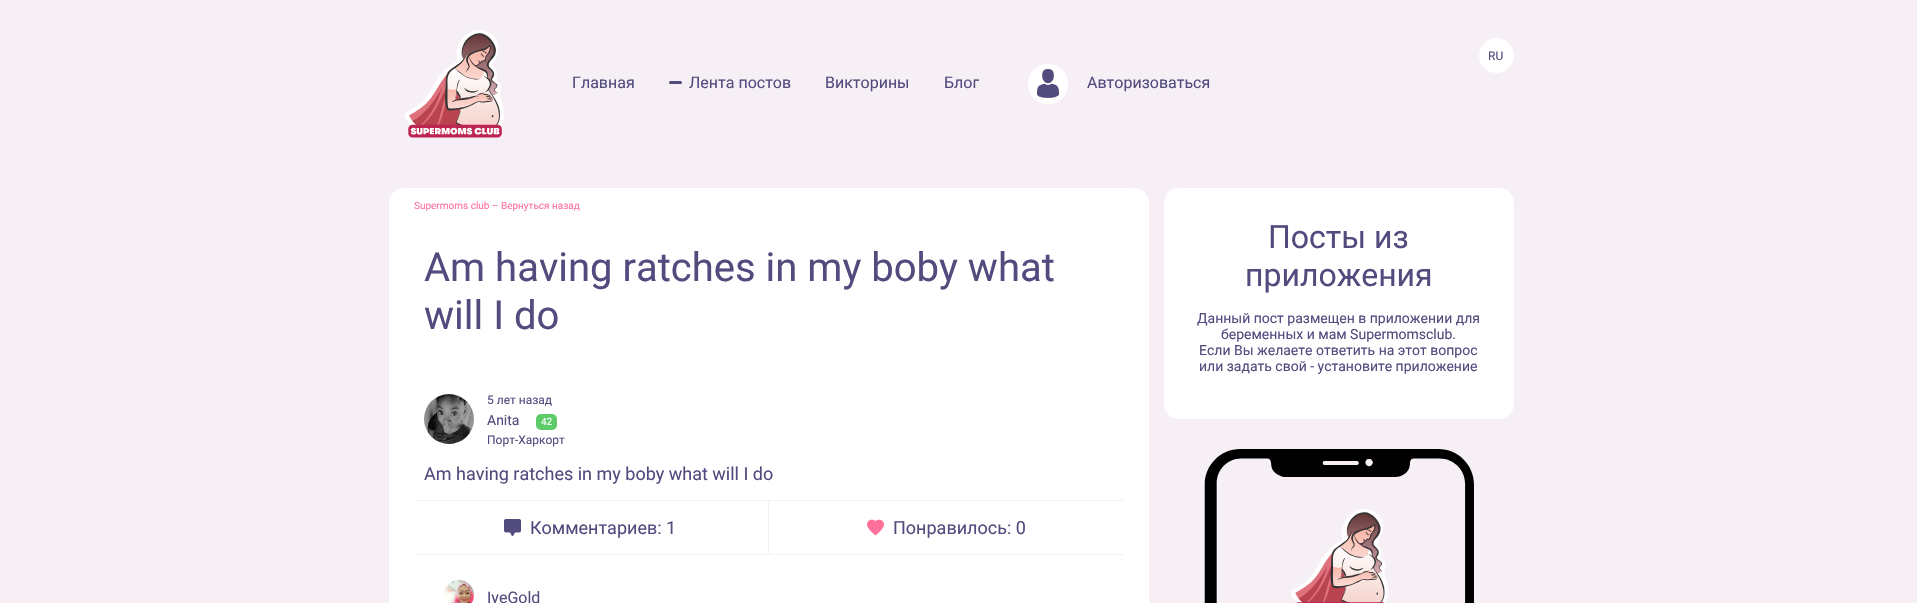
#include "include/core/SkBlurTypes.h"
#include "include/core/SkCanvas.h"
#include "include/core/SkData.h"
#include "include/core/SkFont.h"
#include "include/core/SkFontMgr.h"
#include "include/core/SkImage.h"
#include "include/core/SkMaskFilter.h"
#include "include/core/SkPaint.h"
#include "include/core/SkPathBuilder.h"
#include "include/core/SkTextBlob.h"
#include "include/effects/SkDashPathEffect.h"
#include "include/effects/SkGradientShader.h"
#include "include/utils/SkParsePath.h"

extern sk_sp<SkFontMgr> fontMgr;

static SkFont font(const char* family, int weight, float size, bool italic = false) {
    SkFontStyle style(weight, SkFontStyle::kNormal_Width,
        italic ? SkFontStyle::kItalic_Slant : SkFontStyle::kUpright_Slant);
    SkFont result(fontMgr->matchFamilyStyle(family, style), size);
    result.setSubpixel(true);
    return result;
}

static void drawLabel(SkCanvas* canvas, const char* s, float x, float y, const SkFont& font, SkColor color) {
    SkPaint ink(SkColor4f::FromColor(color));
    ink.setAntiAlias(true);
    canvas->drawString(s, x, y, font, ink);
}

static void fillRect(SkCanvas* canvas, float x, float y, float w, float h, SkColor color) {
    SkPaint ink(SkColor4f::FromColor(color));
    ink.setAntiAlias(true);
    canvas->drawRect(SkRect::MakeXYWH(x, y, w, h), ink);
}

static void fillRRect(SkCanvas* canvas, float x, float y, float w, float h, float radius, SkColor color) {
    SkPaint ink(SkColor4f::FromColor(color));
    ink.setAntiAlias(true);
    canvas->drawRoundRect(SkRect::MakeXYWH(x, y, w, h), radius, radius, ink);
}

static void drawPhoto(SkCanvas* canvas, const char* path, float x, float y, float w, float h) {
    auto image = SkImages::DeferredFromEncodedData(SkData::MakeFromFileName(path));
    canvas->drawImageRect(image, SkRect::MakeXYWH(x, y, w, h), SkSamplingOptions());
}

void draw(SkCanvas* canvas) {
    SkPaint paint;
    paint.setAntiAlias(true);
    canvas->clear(0xFFF6EFF6);
    paint.setColor(0xFFFFFFFF);
    canvas->drawCircle(1496.5f, 55.5f, 17.5f, paint);
    SkFont font1 = font("Roboto", 400, 12);
    drawLabel(canvas, "RU", 1488, 60, font1, 0xFF514B7E);
    drawPhoto(canvas, "assets/img1.png", 404, 30, 100, 108);
    SkFont font2 = font("Roboto", 400, 16);
    drawLabel(canvas, "Главная", 572, 88, font2, 0xFF514B7E);
    drawLabel(canvas, "Лента постов", 689, 88, font2, 0xFF514B7E);
    fillRRect(canvas, 669, 81, 13, 3, 1.5f, 0xFF514B7E);
    drawLabel(canvas, "Викторины", 825, 88, font2, 0xFF514B7E);
    drawLabel(canvas, "Блог", 944, 88, font2, 0xFF514B7E);
    canvas->drawCircle(1048, 84, 20, paint);
    drawPhoto(canvas, "assets/img2.png", 1037, 69, 22, 29);
    paint.setStroke(true);
    paint.setStrokeWidth(2);
    canvas->drawCircle(1048, 84, 19, paint);
    drawLabel(canvas, "Авторизоваться", 1087, 88, font2, 0xFF514B7E);
    fillRRect(canvas, 389, 188, 760, 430, 15, 0xFFFFFFFF);
    SkFont font3 = font("Roboto", 400, 10);
    drawLabel(canvas, "Supermoms club – Вернуться назад", 414, 209, font3, 0xFFFF709B);
    SkFont font4 = font("Roboto", 400, 40);
    drawLabel(canvas, "Am having ratches in my boby what", 424, 281, font4, 0xFF514B7E);
    drawLabel(canvas, "will I do", 424, 329, font4, 0xFF514B7E);
    drawPhoto(canvas, "assets/img3.png", 424, 394, 50, 50);
    drawLabel(canvas, "5 лет назад", 487, 404, font1, 0xFF514B7E);
    SkFont font5 = font("Roboto", 400, 14);
    drawLabel(canvas, "Anita", 487, 425, font5, 0xFF514B7E);
    fillRRect(canvas, 536, 414, 21, 16, 5, 0xFF5DCB68);
    drawLabel(canvas, "42", 541, 425, font3, 0xFFFFFFFF);
    drawLabel(canvas, "Порт-Харкорт", 487, 444, font1, 0xFF514B7E);
    SkFont font6 = font("Roboto", 400, 18);
    drawLabel(canvas, "Am having ratches in my boby what will I do", 424, 480, font6, 0xFF514B7E);
    fillRect(canvas, 414, 500, 710, 1, 0xFFF6EFF6);
    fillRect(canvas, 768, 500, 1, 55, 0xFFF6EFF6);
    fillRect(canvas, 414, 554, 710, 1, 0xFFF6EFF6);
    drawPhoto(canvas, "assets/img4.png", 504, 519, 17, 17);
    drawLabel(canvas, "Комментариев: 1", 530, 534, font6, 0xFF514B7E);
    drawPhoto(canvas, "assets/img5.png", 867, 519, 17, 17);
    drawLabel(canvas, "Понравилось: 0", 893, 534, font6, 0xFF514B7E);
    drawPhoto(canvas, "assets/img6.png", 444, 580, 30, 23);
    drawLabel(canvas, "IyeGold", 487, 603, font2, 0xFF514B7E);
    fillRRect(canvas, 1164, 188, 350, 231, 15, 0xFFFFFFFF);
    SkFont font7 = font("Roboto", 400, 32);
    drawLabel(canvas, "Посты из", 1268, 248, font7, 0xFF514B7E);
    drawLabel(canvas, "приложения", 1245, 286, font7, 0xFF514B7E);
    drawLabel(canvas, "Данный пост размещен в приложении для", 1197, 323, font5, 0xFF514B7E);
    drawLabel(canvas, "беременных и мам Supermomsclub.", 1221, 339, font5, 0xFF514B7E);
    drawLabel(canvas, "Если Вы желаете ответить на этот вопрос", 1199, 355, font5, 0xFF514B7E);
    drawLabel(canvas, "или задать свой - установите приложение", 1199, 371, font5, 0xFF514B7E);
    drawPhoto(canvas, "assets/img7.png", 1204, 449, 270, 154);
}
